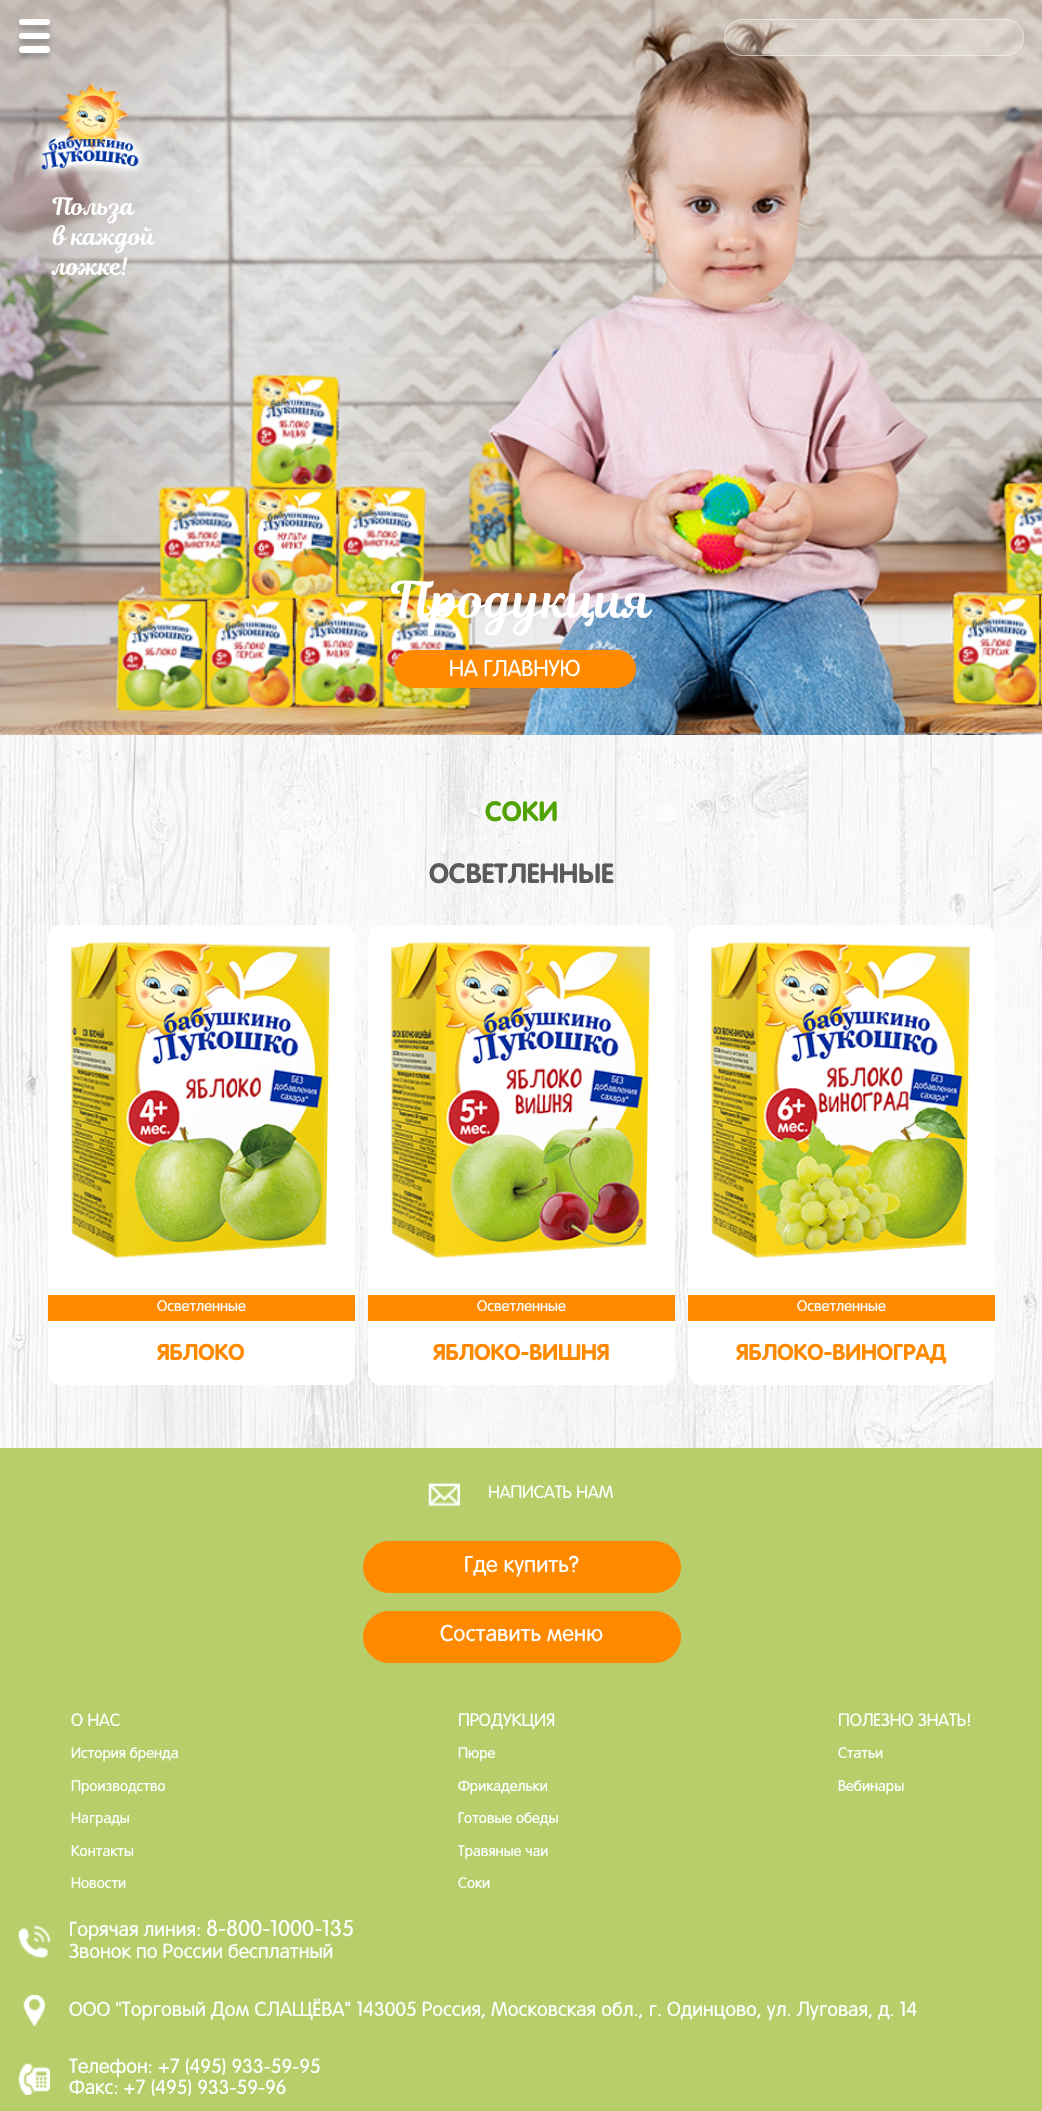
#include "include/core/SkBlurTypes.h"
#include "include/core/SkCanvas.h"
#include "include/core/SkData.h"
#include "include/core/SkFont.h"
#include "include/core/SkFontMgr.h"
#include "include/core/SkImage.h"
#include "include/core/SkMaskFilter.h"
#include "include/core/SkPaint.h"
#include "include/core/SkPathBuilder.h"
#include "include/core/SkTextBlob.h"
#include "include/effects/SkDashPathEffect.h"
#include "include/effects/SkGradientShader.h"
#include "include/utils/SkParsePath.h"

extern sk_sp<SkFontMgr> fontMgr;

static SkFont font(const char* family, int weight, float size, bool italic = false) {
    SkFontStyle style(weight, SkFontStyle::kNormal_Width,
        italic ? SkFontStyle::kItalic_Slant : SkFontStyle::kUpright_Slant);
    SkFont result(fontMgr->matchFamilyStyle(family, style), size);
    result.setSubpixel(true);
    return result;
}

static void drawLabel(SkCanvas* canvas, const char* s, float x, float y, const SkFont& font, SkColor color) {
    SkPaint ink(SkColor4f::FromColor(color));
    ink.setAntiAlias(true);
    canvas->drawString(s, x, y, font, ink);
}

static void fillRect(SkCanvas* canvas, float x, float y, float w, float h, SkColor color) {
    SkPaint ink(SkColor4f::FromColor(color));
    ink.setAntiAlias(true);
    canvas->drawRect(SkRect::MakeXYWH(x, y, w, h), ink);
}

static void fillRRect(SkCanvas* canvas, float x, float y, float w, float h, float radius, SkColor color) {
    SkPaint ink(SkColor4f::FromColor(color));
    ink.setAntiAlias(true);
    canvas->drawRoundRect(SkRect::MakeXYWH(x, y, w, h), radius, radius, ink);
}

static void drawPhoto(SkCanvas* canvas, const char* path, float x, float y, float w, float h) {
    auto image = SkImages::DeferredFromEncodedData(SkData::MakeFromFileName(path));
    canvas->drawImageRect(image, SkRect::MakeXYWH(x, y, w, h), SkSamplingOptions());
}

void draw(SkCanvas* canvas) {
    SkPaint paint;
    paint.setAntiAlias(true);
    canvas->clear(0xFFFFFFFF);
    drawPhoto(canvas, "assets/img1.png", 0, 735, 1042, 713);
    drawPhoto(canvas, "assets/img2.png", 0, 0, 1042, 735);
    paint.setColor(0x40000000);
    paint.setMaskFilter(SkMaskFilter::MakeBlur(kNormal_SkBlurStyle, 2.5f));
    canvas->drawRoundRect(SkRect::MakeXYWH(19, 24, 31, 6), 3, 3, paint);
    paint.setMaskFilter(nullptr);
    fillRRect(canvas, 19, 19, 31, 6, 3, 0xFFFFFFFF);
    paint.setMaskFilter(SkMaskFilter::MakeBlur(kNormal_SkBlurStyle, 2.5f));
    canvas->drawRoundRect(SkRect::MakeXYWH(19, 38, 31, 6), 3, 3, paint);
    paint.setMaskFilter(nullptr);
    fillRRect(canvas, 19, 33, 31, 6, 3, 0xFFFFFFFF);
    paint.setMaskFilter(SkMaskFilter::MakeBlur(kNormal_SkBlurStyle, 2.5f));
    canvas->drawRoundRect(SkRect::MakeXYWH(19, 51, 31, 7), 3.5f, 3.5f, paint);
    paint.setMaskFilter(nullptr);
    fillRRect(canvas, 19, 46, 31, 7, 3.5f, 0xFFFFFFFF);
    fillRRect(canvas, 724, 19, 300, 37, 18.5f, 0x33FFFFFF);
    paint.setStroke(true);
    paint.setStrokeWidth(1);
    paint.setColor(0x80FFFFFF);
    canvas->drawRoundRect(SkRect::MakeXYWH(724.5f, 19.5f, 299, 36), 18, 18, paint);
    drawPhoto(canvas, "assets/img3.png", 32, 82, 116, 97);
    SkFont font1 = font("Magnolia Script", 400, 23.75f);
    drawLabel(canvas, "Польза", 53, 215, font1, 0xFFFFFFFF);
    drawLabel(canvas, "в каждой", 53, 245, font1, 0xFFFFFFFF);
    drawLabel(canvas, "ложке!", 53, 275, font1, 0xFFFFFFFF);
    SkFont font2 = font("Magnolia Script", 400, 50);
    drawLabel(canvas, "Продукция", 392, 618, font2, 0xFFFFFFFF);
    fillRRect(canvas, 394, 650, 242, 38, 19, 0xFFFF8A00);
    SkFont font3 = font("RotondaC", 400, 22.5f);
    drawLabel(canvas, "НА ГЛАВНУЮ", 449, 676, font3, 0xFFFFFFFF);
    SkFont font4 = font("RotondaC", 700, 27.5f);
    drawLabel(canvas, "СОКИ", 485, 821, font4, 0xFF50A300);
    drawLabel(canvas, "ОСВЕТЛЕННЫЕ", 429, 883, font4, 0xFF5B5B5B);
    fillRRect(canvas, 48, 925, 307, 460, 13, 0xFFFFFFFF);
    drawPhoto(canvas, "assets/img4.png", 71, 942, 260, 316);
    fillRect(canvas, 48, 1295, 307, 26, 0xFFFF8A00);
    SkFont font5 = font("RotondaC", 400, 15);
    drawLabel(canvas, "Осветленные", 157, 1311, font5, 0xFFFFFFFF);
    SkFont font6 = font("RotondaC", 700, 22.5f);
    drawLabel(canvas, "ЯБЛОКО", 157, 1360, font6, 0xFFFF8A00);
    fillRRect(canvas, 368, 925, 307, 460, 13, 0xFFFFFFFF);
    drawPhoto(canvas, "assets/img5.png", 391, 942, 260, 316);
    fillRect(canvas, 368, 1295, 307, 26, 0xFFFF8A00);
    drawLabel(canvas, "Осветленные", 477, 1311, font5, 0xFFFFFFFF);
    drawLabel(canvas, "ЯБЛОКО-ВИШНЯ", 433, 1360, font6, 0xFFFF8A00);
    fillRRect(canvas, 688, 925, 307, 460, 13, 0xFFFFFFFF);
    drawPhoto(canvas, "assets/img6.png", 711, 942, 260, 316);
    fillRect(canvas, 688, 1295, 307, 26, 0xFFFF8A00);
    drawLabel(canvas, "Осветленные", 797, 1311, font5, 0xFFFFFFFF);
    drawLabel(canvas, "ЯБЛОКО-ВИНОГРАД", 736, 1360, font6, 0xFFFF8A00);
    fillRect(canvas, 0, 1448, 1042, 663, 0xFFB7CE6B);
    drawPhoto(canvas, "assets/img7.png", 428, 1482, 32, 25);
    SkFont font7 = font("RotondaC", 400, 17.5f);
    drawLabel(canvas, "НАПИСАТЬ НАМ", 488, 1498, font7, 0xFFFFFFFF);
    paint.setStroke(false);
    paint.setColor(0xFFFF8A00);
    canvas->drawRoundRect(SkRect::MakeXYWH(363.5f, 1541.5f, 317, 51), 25.5f, 25.5f, paint);
    paint.setStroke(true);
    canvas->drawRoundRect(SkRect::MakeXYWH(363.5f, 1541.5f, 317, 51), 25.5f, 25.5f, paint);
    drawLabel(canvas, "Где купить?", 464, 1572, font3, 0xFFFFFFFF);
    paint.setStroke(false);
    canvas->drawRoundRect(SkRect::MakeXYWH(363.5f, 1611.5f, 317, 51), 25.5f, 25.5f, paint);
    paint.setStroke(true);
    canvas->drawRoundRect(SkRect::MakeXYWH(363.5f, 1611.5f, 317, 51), 25.5f, 25.5f, paint);
    drawLabel(canvas, "Составить меню", 440, 1641, font3, 0xFFFFFFFF);
    drawLabel(canvas, "О НАС", 71, 1726, font7, 0xFFFFFFFF);
    drawLabel(canvas, "История бренда", 71, 1758, font5, 0xFFFFFFFF);
    drawLabel(canvas, "Производство", 71, 1791, font5, 0xFFFFFFFF);
    drawLabel(canvas, "Награды", 71, 1823, font5, 0xFFFFFFFF);
    drawLabel(canvas, "Контакты", 71, 1856, font5, 0xFFFFFFFF);
    drawLabel(canvas, "Новости", 71, 1888, font5, 0xFFFFFFFF);
    drawLabel(canvas, "ПРОДУКЦИЯ", 458, 1726, font7, 0xFFFFFFFF);
    drawLabel(canvas, "Пюре", 458, 1758, font5, 0xFFFFFFFF);
    drawLabel(canvas, "Фрикадельки", 458, 1791, font5, 0xFFFFFFFF);
    drawLabel(canvas, "Готовые обеды", 458, 1823, font5, 0xFFFFFFFF);
    drawLabel(canvas, "Травяные чаи", 458, 1856, font5, 0xFFFFFFFF);
    drawLabel(canvas, "Соки", 458, 1888, font5, 0xFFFFFFFF);
    drawLabel(canvas, "ПОЛЕЗНО ЗНАТЬ!", 838, 1726, font7, 0xFFFFFFFF);
    drawLabel(canvas, "Статьи", 838, 1758, font5, 0xFFFFFFFF);
    drawLabel(canvas, "Вебинары", 838, 1791, font5, 0xFFFFFFFF);
    drawPhoto(canvas, "assets/img8.png", 18, 1926, 32, 32);
    SkFont font8 = font("RotondaC", 400, 20);
    drawLabel(canvas, "Горячая линия:", 69, 1936, font8, 0xFFFFFFFF);
    drawLabel(canvas, "8-800-1000-135", 206, 1936, font3, 0xFFFFFFFF);
    drawLabel(canvas, "Звонок по России бесплатный", 69, 1958, font8, 0xFFFFFFFF);
    drawPhoto(canvas, "assets/img9.png", 23, 1995, 22, 32);
    drawLabel(canvas, "ООО \"Торговый Дом СЛАЩЁВА\" 143005 Россия, Московская обл., г. Одинцово, ул. Луговая, д. 14", 69, 2016, font8, 0xFFFFFFFF);
    drawPhoto(canvas, "assets/img10.png", 18, 2063, 32, 32);
    drawLabel(canvas, "Телефон: +7 (495) 933-59-95", 69, 2073, font8, 0xFFFFFFFF);
    drawLabel(canvas, "Факс: +7 (495) 933-59-96", 69, 2094, font8, 0xFFFFFFFF);
}
